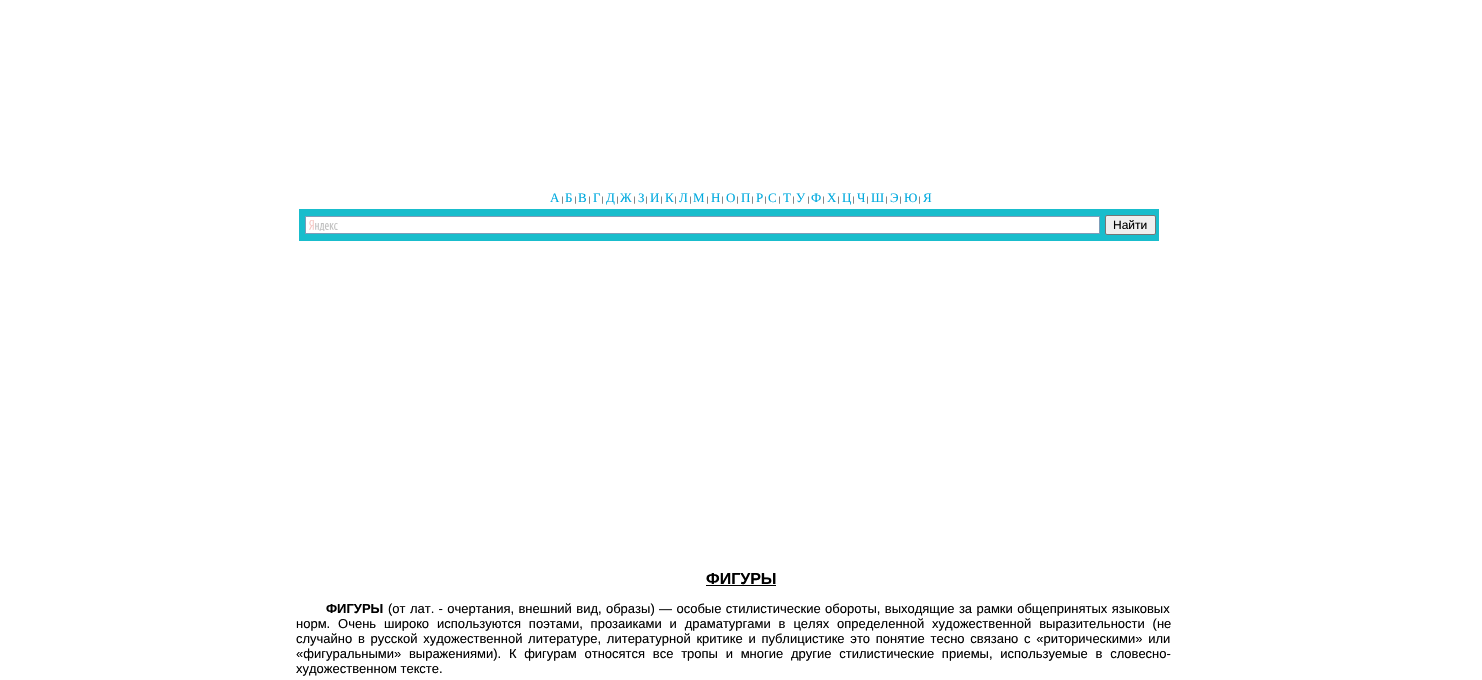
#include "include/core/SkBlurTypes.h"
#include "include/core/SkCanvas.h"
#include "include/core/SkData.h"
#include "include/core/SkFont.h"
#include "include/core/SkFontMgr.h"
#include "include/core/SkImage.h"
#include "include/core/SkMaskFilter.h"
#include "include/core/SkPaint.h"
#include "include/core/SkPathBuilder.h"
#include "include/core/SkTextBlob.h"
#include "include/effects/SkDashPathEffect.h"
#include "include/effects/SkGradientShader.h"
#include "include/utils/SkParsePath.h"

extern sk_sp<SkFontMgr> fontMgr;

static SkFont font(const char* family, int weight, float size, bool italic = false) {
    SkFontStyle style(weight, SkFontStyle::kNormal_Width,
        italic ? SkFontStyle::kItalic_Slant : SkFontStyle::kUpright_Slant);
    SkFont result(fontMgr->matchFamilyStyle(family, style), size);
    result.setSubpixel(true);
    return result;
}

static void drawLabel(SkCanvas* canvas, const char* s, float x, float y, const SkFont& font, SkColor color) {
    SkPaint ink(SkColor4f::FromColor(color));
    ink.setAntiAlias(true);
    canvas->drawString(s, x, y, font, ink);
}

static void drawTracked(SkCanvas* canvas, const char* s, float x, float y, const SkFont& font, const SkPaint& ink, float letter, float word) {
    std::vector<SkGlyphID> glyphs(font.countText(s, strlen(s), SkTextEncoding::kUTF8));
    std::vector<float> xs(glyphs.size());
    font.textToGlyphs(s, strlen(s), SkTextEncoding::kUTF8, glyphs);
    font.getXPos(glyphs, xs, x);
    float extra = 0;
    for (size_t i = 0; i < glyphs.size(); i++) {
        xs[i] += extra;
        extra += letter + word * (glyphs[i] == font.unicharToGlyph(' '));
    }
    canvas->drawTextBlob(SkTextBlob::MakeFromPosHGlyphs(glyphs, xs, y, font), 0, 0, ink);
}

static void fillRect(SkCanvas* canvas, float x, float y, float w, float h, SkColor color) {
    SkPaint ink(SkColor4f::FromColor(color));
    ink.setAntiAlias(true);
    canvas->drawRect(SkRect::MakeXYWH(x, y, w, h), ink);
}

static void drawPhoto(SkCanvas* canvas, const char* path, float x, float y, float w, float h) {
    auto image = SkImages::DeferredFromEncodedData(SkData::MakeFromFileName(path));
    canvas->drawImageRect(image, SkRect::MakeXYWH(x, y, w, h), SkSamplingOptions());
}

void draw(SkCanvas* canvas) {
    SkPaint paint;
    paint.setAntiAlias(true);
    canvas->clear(0xFFFFFFFF);
    SkFont font1 = font("Liberation Serif", 400, 13);
    drawLabel(canvas, "А", 550, 202, font1, 0xFF00AADF);
    SkFont font2 = font("Liberation Serif", 400, 8);
    drawLabel(canvas, "|", 562, 202, font2, 0xFF000000);
    drawLabel(canvas, "Б", 565, 202, font1, 0xFF00AADF);
    drawLabel(canvas, "|", 575, 202, font2, 0xFF000000);
    drawLabel(canvas, "В", 578, 202, font1, 0xFF00AADF);
    drawLabel(canvas, "|", 589, 202, font2, 0xFF000000);
    drawLabel(canvas, "Г", 593, 202, font1, 0xFF00AADF);
    drawLabel(canvas, "|", 602, 202, font2, 0xFF000000);
    drawLabel(canvas, "Д", 606, 202, font1, 0xFF00AADF);
    drawLabel(canvas, "|", 617, 202, font2, 0xFF000000);
    drawLabel(canvas, "Ж", 620, 202, font1, 0xFF00AADF);
    drawLabel(canvas, "|", 634, 202, font2, 0xFF000000);
    drawLabel(canvas, "З", 638, 202, font1, 0xFF00AADF);
    drawLabel(canvas, "|", 646, 202, font2, 0xFF000000);
    drawLabel(canvas, "И", 650, 202, font1, 0xFF00AADF);
    drawLabel(canvas, "|", 661, 202, font2, 0xFF000000);
    drawLabel(canvas, "К", 665, 202, font1, 0xFF00AADF);
    drawLabel(canvas, "|", 675, 202, font2, 0xFF000000);
    drawLabel(canvas, "Л", 679, 202, font1, 0xFF00AADF);
    drawLabel(canvas, "|", 690, 202, font2, 0xFF000000);
    drawLabel(canvas, "М", 693, 202, font1, 0xFF00AADF);
    drawLabel(canvas, "|", 707, 202, font2, 0xFF000000);
    drawLabel(canvas, "Н", 711, 202, font1, 0xFF00AADF);
    drawLabel(canvas, "|", 722, 202, font2, 0xFF000000);
    drawLabel(canvas, "О", 726, 202, font1, 0xFF00AADF);
    drawLabel(canvas, "|", 737, 202, font2, 0xFF000000);
    drawLabel(canvas, "П", 741, 202, font1, 0xFF00AADF);
    drawLabel(canvas, "|", 752, 202, font2, 0xFF000000);
    drawLabel(canvas, "Р", 756, 202, font1, 0xFF00AADF);
    drawLabel(canvas, "|", 765, 202, font2, 0xFF000000);
    drawLabel(canvas, "С", 768, 202, font1, 0xFF00AADF);
    drawLabel(canvas, "|", 779, 202, font2, 0xFF000000);
    drawLabel(canvas, "Т", 783, 202, font1, 0xFF00AADF);
    drawLabel(canvas, "|", 793, 202, font2, 0xFF000000);
    drawLabel(canvas, "У", 796, 202, font1, 0xFF00AADF);
    drawLabel(canvas, "|", 808, 202, font2, 0xFF000000);
    drawLabel(canvas, "Ф", 811, 202, font1, 0xFF00AADF);
    drawLabel(canvas, "|", 823, 202, font2, 0xFF000000);
    drawLabel(canvas, "Х", 827, 202, font1, 0xFF00AADF);
    drawLabel(canvas, "|", 838, 202, font2, 0xFF000000);
    drawLabel(canvas, "Ц", 842, 202, font1, 0xFF00AADF);
    drawLabel(canvas, "|", 853, 202, font2, 0xFF000000);
    drawLabel(canvas, "Ч", 857, 202, font1, 0xFF00AADF);
    drawLabel(canvas, "|", 867, 202, font2, 0xFF000000);
    drawLabel(canvas, "Ш", 871, 202, font1, 0xFF00AADF);
    drawLabel(canvas, "|", 886, 202, font2, 0xFF000000);
    drawLabel(canvas, "Э", 890, 202, font1, 0xFF00AADF);
    drawLabel(canvas, "|", 900, 202, font2, 0xFF000000);
    drawLabel(canvas, "Ю", 904, 202, font1, 0xFF00AADF);
    drawLabel(canvas, "|", 919, 202, font2, 0xFF000000);
    drawLabel(canvas, "Я", 923, 202, font1, 0xFF00AADF);
    fillRect(canvas, 299, 209, 860, 32, 0xFF19BDCC);
    fillRect(canvas, 306, 217, 793, 16, 0xFFFFFFFF);
    drawPhoto(canvas, "assets/img1.png", 309, 220, 29, 11);
    paint.setStroke(true);
    paint.setStrokeWidth(1);
    paint.setColor(0xFF7F9DB9);
    canvas->drawRect(SkRect::MakeXYWH(305.5f, 216.5f, 794, 17), paint);
    paint.setStroke(false);
    paint.setColor(0xFFEFEFEF);
    canvas->drawRoundRect(SkRect::MakeXYWH(1105.5f, 215.5f, 50, 19), 1.5f, 1.5f, paint);
    paint.setStroke(true);
    paint.setColor(0xFF767676);
    canvas->drawRoundRect(SkRect::MakeXYWH(1105.5f, 215.5f, 50, 19), 1.5f, 1.5f, paint);
    SkFont font3 = font("Liberation Sans", 400, 12);
    drawLabel(canvas, "Найти", 1113, 229, font3, 0xFF000000);
    SkFont font4 = font("Liberation Sans", 700, 16);
    drawLabel(canvas, "ФИГУРЫ", 706, 584, font4, 0xFF000000);
    fillRect(canvas, 706, 585, 70, 1, 0xFF000000);
    SkFont font5 = font("Liberation Sans", 700, 13);
    drawLabel(canvas, "ФИГУРЫ", 326, 613, font5, 0xFF000000);
    SkFont font6 = font("Liberation Sans", 400, 13);
    paint.setStroke(false);
    paint.setColor(0xFF000000);
    drawTracked(canvas, "(от лат. - очертания, внешний вид, образы) — особые стилистические обороты, выходящие за рамки общепринятых языковых", 388, 613, font6, paint, 0, 0.75f);
    drawTracked(canvas, "норм. Очень широко используются поэтами, прозаиками и драматургами в целях определенной художественной выразительности (не", 296, 628, font6, paint, 0, 4.25f);
    drawTracked(canvas, "случайно в русской художественной литературе, литературной критике и публицистике это понятие тесно связано с «риторическими» или", 296, 643, font6, paint, 0, 2.1f);
    drawTracked(canvas, "«фигуральными» выражениями). К фигурам относятся все тропы и многие другие стилистические приемы, используемые в словесно-", 296, 658, font6, paint, 0, 4.1f);
    drawLabel(canvas, "художественном тексте.", 296, 673, font6, 0xFF000000);
}
